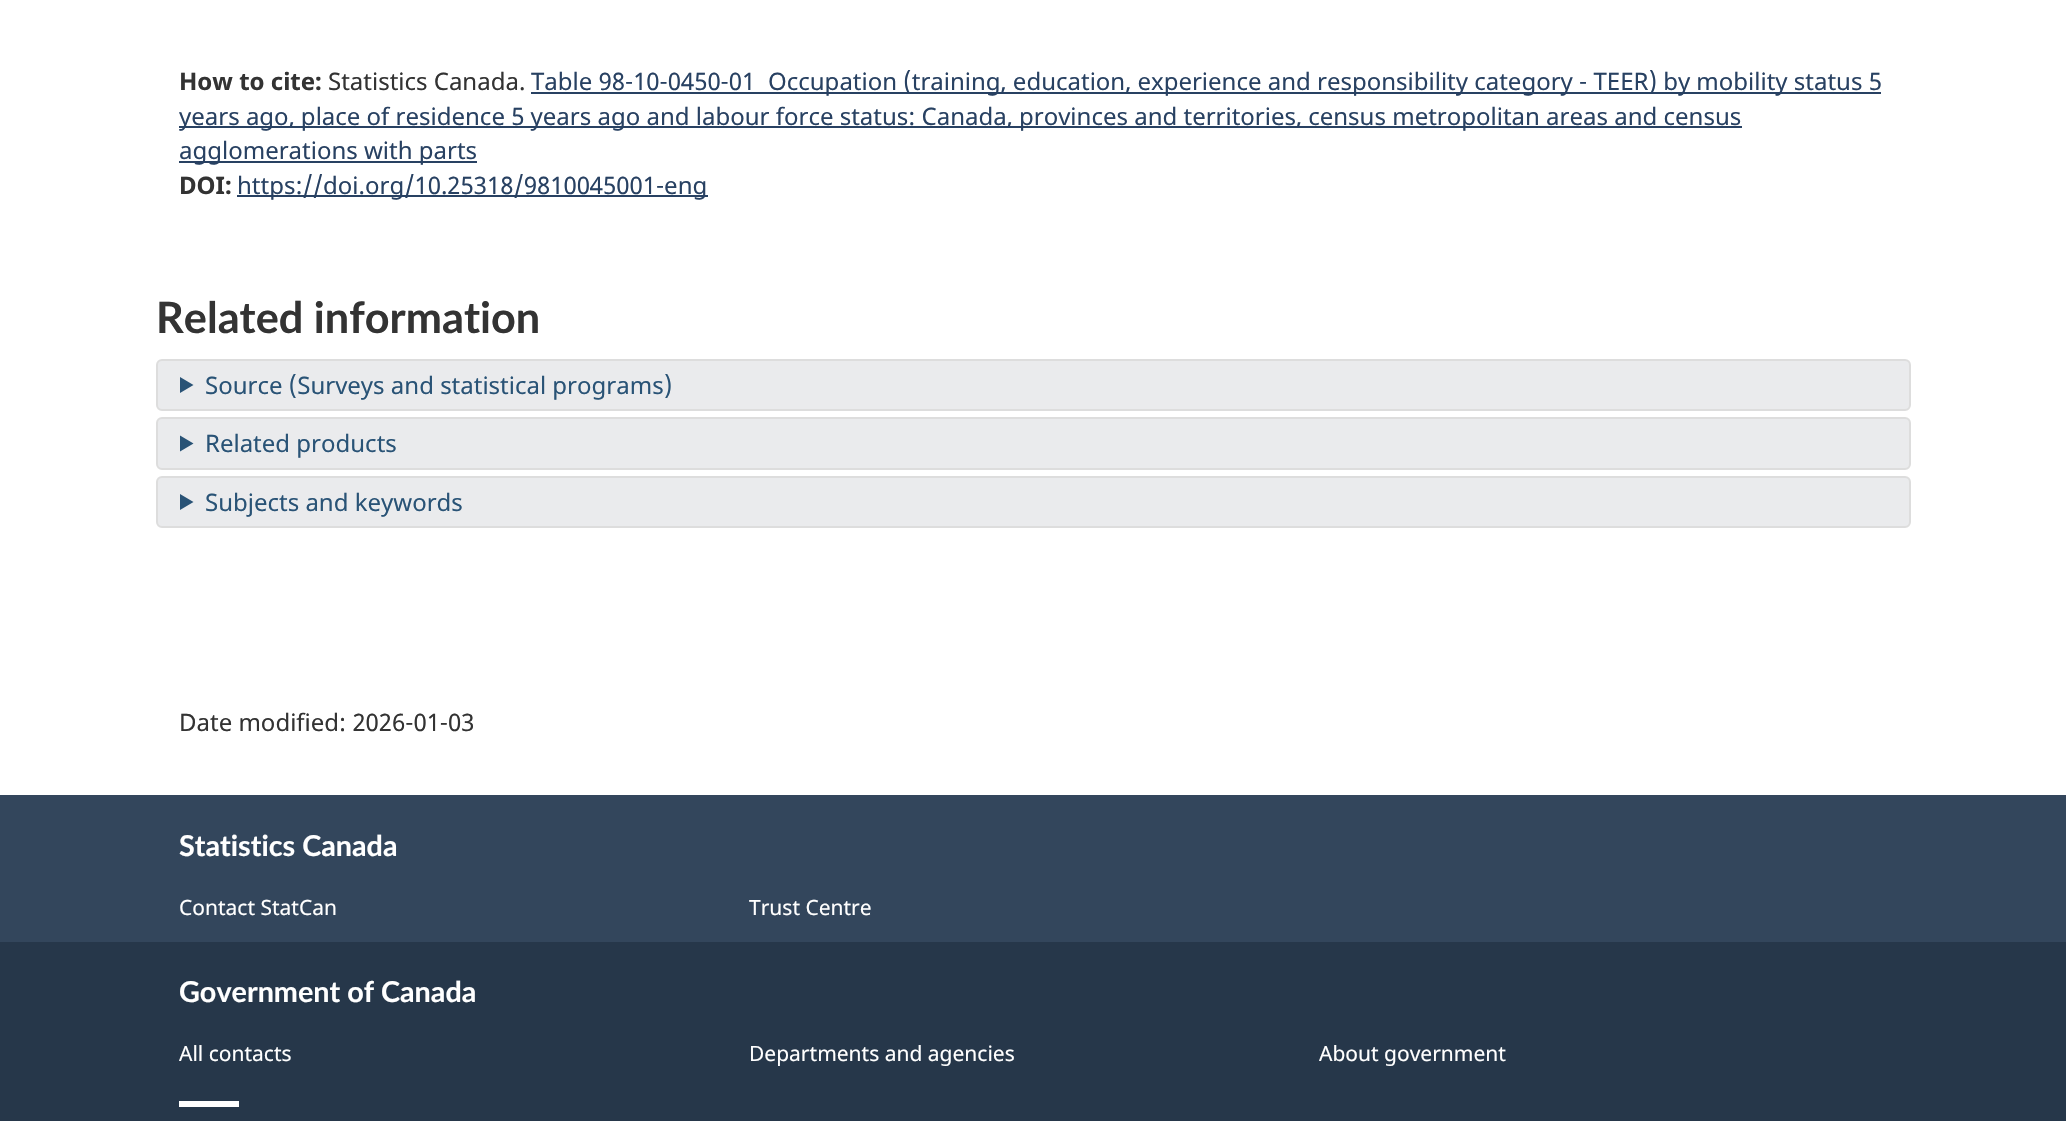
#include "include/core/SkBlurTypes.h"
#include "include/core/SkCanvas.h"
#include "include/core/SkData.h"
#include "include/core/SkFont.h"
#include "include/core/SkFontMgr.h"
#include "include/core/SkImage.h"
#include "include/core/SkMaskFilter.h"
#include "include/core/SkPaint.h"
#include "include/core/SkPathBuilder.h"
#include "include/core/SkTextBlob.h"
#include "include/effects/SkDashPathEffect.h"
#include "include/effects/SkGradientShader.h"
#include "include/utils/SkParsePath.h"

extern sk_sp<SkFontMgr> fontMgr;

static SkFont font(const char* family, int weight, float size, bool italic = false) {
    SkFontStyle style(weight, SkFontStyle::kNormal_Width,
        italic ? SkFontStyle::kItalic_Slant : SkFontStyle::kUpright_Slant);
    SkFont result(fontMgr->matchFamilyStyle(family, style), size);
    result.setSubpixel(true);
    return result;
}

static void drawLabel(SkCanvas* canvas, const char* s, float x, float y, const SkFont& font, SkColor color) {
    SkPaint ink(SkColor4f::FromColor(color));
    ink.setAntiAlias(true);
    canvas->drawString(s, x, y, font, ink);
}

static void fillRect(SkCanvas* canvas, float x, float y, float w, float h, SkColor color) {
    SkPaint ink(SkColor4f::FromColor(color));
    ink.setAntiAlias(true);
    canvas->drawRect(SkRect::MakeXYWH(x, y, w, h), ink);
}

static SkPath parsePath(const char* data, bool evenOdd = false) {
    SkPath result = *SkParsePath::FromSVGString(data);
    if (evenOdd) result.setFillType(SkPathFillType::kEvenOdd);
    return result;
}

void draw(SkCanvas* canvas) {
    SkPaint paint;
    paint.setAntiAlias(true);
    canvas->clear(0xFFFFFFFF);
    SkFont font1 = font("Noto Sans", 700, 24);
    drawLabel(canvas, "How to cite:", 179, 90, font1, 0xFF333333);
    SkFont font2 = font("Noto Sans", 400, 24);
    drawLabel(canvas, "Statistics Canada.", 328, 90, font2, 0xFF333333);
    drawLabel(canvas, "Table 98-10-0450-01", 531, 90, font2, 0xFF284162);
    fillRect(canvas, 531, 92, 1350, 2, 0xFF284162);
    drawLabel(canvas, "Occupation (training, education, experience and responsibility category - TEER) by mobility status 5", 768, 90, font2, 0xFF284162);
    fillRect(canvas, 179, 126, 1563, 2, 0xFF284162);
    drawLabel(canvas, "years ago, place of residence 5 years ago and labour force status: Canada, provinces and territories, census metropolitan areas and census", 179, 125, font2, 0xFF284162);
    fillRect(canvas, 179, 161, 298, 2, 0xFF284162);
    drawLabel(canvas, "agglomerations with parts", 179, 159, font2, 0xFF284162);
    drawLabel(canvas, "DOI:", 179, 194, font1, 0xFF333333);
    fillRect(canvas, 237, 195, 471, 2, 0xFF284162);
    drawLabel(canvas, "https://doi.org/10.25318/9810045001-eng", 237, 194, font2, 0xFF284162);
    SkFont font3 = font("Lato", 700, 43.25f);
    drawLabel(canvas, "Related information", 156, 333, font3, 0xFF333333);
    paint.setColor(0xFFEAEBED);
    canvas->drawRoundRect(SkRect::MakeXYWH(157, 360, 1753, 50), 5, 5, paint);
    paint.setStroke(true);
    paint.setStrokeWidth(2);
    paint.setColor(0xFFDDDDDD);
    canvas->drawRoundRect(SkRect::MakeXYWH(157, 360, 1753, 50), 5, 5, paint);
    paint.setStroke(false);
    paint.setColor(0xFF295376);
    canvas->drawPath(parsePath("M180 377L193.5 385L180 393Z"), paint);
    drawLabel(canvas, "Source (Surveys and statistical programs)", 205, 394, font2, 0xFF295376);
    paint.setColor(0xFFEAEBED);
    canvas->drawRoundRect(SkRect::MakeXYWH(157, 418, 1753, 51), 5, 5, paint);
    paint.setStroke(true);
    paint.setColor(0xFFDDDDDD);
    canvas->drawRoundRect(SkRect::MakeXYWH(157, 418, 1753, 51), 5, 5, paint);
    paint.setStroke(false);
    paint.setColor(0xFF295376);
    canvas->drawPath(parsePath("M180 435.5L193.5 443.5L180 451.5Z"), paint);
    drawLabel(canvas, "Related products", 205, 452, font2, 0xFF295376);
    paint.setColor(0xFFEAEBED);
    canvas->drawRoundRect(SkRect::MakeXYWH(157, 477, 1753, 50), 5, 5, paint);
    paint.setStroke(true);
    paint.setColor(0xFFDDDDDD);
    canvas->drawRoundRect(SkRect::MakeXYWH(157, 477, 1753, 50), 5, 5, paint);
    paint.setStroke(false);
    paint.setColor(0xFF295376);
    canvas->drawPath(parsePath("M180 494L193.5 502L180 510Z"), paint);
    drawLabel(canvas, "Subjects and keywords", 205, 511, font2, 0xFF295376);
    drawLabel(canvas, "Date modified: 2026-01-03", 179, 731, font2, 0xFF333333);
    fillRect(canvas, 0, 795, 2066, 147, 0xFF33465C);
    SkFont font4 = font("Lato", 700, 28.75f);
    drawLabel(canvas, "Statistics Canada", 179, 856, font4, 0xFFFFFFFF);
    SkFont font5 = font("Noto Sans", 400, 21);
    drawLabel(canvas, "Contact StatCan", 179, 915, font5, 0xFFFFFFFF);
    drawLabel(canvas, "Trust Centre", 749, 915, font5, 0xFFFFFFFF);
    fillRect(canvas, 0, 942, 2066, 179, 0xFF26374A);
    drawLabel(canvas, "Government of Canada", 179, 1002, font4, 0xFFFFFFFF);
    drawLabel(canvas, "All contacts", 179, 1061, font5, 0xFFFFFFFF);
    drawLabel(canvas, "Departments and agencies", 749, 1061, font5, 0xFFFFFFFF);
    drawLabel(canvas, "About government", 1319, 1061, font5, 0xFFFFFFFF);
    fillRect(canvas, 179, 1101, 60, 6, 0xFFFFFFFF);
}
